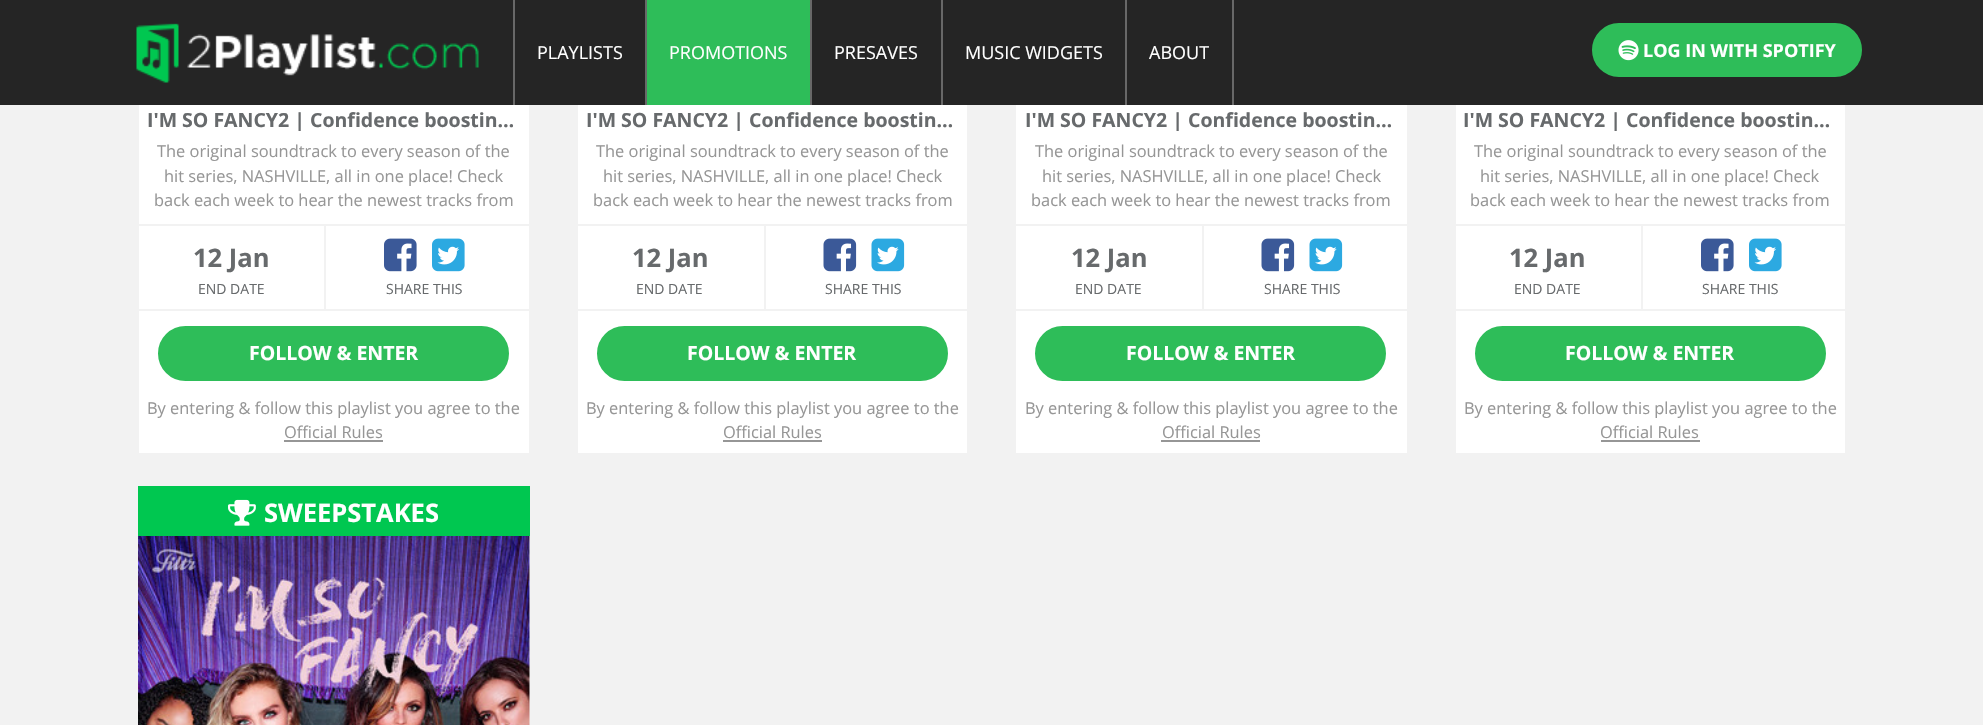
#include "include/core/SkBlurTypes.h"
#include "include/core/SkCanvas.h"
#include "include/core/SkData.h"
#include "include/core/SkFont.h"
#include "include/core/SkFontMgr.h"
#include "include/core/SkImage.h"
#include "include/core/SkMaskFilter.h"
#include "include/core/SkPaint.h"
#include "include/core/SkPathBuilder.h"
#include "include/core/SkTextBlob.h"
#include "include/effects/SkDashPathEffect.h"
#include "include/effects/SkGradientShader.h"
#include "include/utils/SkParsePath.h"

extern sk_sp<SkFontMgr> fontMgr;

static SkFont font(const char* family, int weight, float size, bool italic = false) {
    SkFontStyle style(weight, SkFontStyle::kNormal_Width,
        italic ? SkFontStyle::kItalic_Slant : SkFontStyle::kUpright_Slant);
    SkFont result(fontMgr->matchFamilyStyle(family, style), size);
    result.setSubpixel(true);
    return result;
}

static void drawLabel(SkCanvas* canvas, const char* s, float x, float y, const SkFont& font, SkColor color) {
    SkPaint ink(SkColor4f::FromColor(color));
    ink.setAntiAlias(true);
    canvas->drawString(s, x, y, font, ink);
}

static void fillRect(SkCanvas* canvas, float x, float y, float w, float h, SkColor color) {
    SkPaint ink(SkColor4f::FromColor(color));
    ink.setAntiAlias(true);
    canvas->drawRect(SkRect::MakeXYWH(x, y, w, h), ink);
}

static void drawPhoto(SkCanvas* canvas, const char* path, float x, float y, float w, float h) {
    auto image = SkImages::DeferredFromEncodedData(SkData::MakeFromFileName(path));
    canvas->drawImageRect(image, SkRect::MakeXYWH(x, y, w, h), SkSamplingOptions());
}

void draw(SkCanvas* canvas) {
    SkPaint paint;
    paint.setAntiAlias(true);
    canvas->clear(0xFFF2F2F2);
    fillRect(canvas, 0, 0, 1983, 105, 0xFF252525);
    drawPhoto(canvas, "assets/img1.png", 136, 23, 343, 60);
    fillRect(canvas, 645, 0, 2, 105, 0xFF686868);
    fillRect(canvas, 513, 0, 2, 105, 0xFF686868);
    SkFont font1 = font("Open Sans", 400, 18);
    drawLabel(canvas, "PLAYLISTS", 537, 59, font1, 0xFFFFFFFF);
    fillRect(canvas, 647, 0, 163, 105, 0xFF2EBD59);
    fillRect(canvas, 810, 0, 2, 105, 0xFF686868);
    drawLabel(canvas, "PROMOTIONS", 669, 59, font1, 0xFFFFFFFF);
    fillRect(canvas, 941, 0, 2, 105, 0xFF686868);
    drawLabel(canvas, "PRESAVES", 834, 59, font1, 0xFFFFFFFF);
    fillRect(canvas, 1125, 0, 2, 105, 0xFF686868);
    drawLabel(canvas, "MUSIC WIDGETS", 965, 59, font1, 0xFFFFFFFF);
    fillRect(canvas, 1232, 0, 2, 105, 0xFF686868);
    drawLabel(canvas, "ABOUT", 1149, 59, font1, 0xFFFFFFFF);
    paint.setColor(0xFF2EBD59);
    canvas->drawRoundRect(SkRect::MakeXYWH(1593.5f, 24.5f, 267, 51), 25.5f, 25.5f, paint);
    paint.setStroke(true);
    paint.setStrokeWidth(3);
    canvas->drawRoundRect(SkRect::MakeXYWH(1593.5f, 24.5f, 267, 51), 25.5f, 25.5f, paint);
    drawPhoto(canvas, "assets/img2.png", 1618, 40, 21, 21);
    SkFont font2 = font("Open Sans", 700, 18);
    drawLabel(canvas, "LOG IN WITH SPOTIFY", 1643, 57, font2, 0xFFFFFFFF);
    fillRect(canvas, 139, 105, 390, 348, 0xFFFFFFFF);
    canvas->save();
    canvas->clipRect(SkRect::MakeXYWH(147, 110, 374, 21));
    SkFont font3 = font("Open Sans", 700, 19.5f);
    drawLabel(canvas, "I'M SO FANCY2 | Confidence boostin…", 147, 127, font3, 0xFF676A6C);
    canvas->restore();
    SkFont font4 = font("Open Sans", 400, 16.4f);
    drawLabel(canvas, "The original soundtrack to every season of the", 157, 157, font4, 0xFF969696);
    drawLabel(canvas, "hit series, NASHVILLE, all in one place! Check", 164, 182, font4, 0xFF969696);
    drawLabel(canvas, "back each week to hear the newest tracks from", 154, 206, font4, 0xFF969696);
    fillRect(canvas, 324, 225, 2, 84, 0xFFF2F2F2);
    fillRect(canvas, 138, 224, 392, 2, 0xFFF2F2F2);
    SkFont font5 = font("Open Sans", 700, 25.5f);
    drawLabel(canvas, "12 Jan", 193, 267, font5, 0xFF676A6C);
    SkFont font6 = font("Open Sans", 400, 14);
    drawLabel(canvas, "END DATE", 198, 294, font6, 0xFF676A6C);
    drawPhoto(canvas, "assets/img3.png", 384, 238, 33, 34);
    drawPhoto(canvas, "assets/img4.png", 432, 238, 33, 34);
    drawLabel(canvas, "SHARE THIS", 386, 294, font6, 0xFF676A6C);
    fillRect(canvas, 138, 309, 392, 2, 0xFFF2F2F2);
    paint.setStroke(false);
    canvas->drawRoundRect(SkRect::MakeXYWH(159.5f, 327.5f, 348, 52), 26, 26, paint);
    paint.setStroke(true);
    canvas->drawRoundRect(SkRect::MakeXYWH(159.5f, 327.5f, 348, 52), 26, 26, paint);
    drawLabel(canvas, "FOLLOW & ENTER", 249, 360, font3, 0xFFFFFFFF);
    drawLabel(canvas, "By entering & follow this playlist you agree to the", 147, 414, font4, 0xFF969696);
    drawLabel(canvas, "Official Rules", 284, 438, font4, 0xFF969696);
    fillRect(canvas, 284, 440, 99, 2, 0xFF969696);
    fillRect(canvas, 578, 105, 389, 348, 0xFFFFFFFF);
    canvas->save();
    canvas->clipRect(SkRect::MakeXYWH(587, 110, 372, 21));
    drawLabel(canvas, "I'M SO FANCY2 | Confidence boostin…", 586, 127, font3, 0xFF676A6C);
    canvas->restore();
    drawLabel(canvas, "The original soundtrack to every season of the", 596, 157, font4, 0xFF969696);
    drawLabel(canvas, "hit series, NASHVILLE, all in one place! Check", 603, 182, font4, 0xFF969696);
    drawLabel(canvas, "back each week to hear the newest tracks from", 593, 206, font4, 0xFF969696);
    fillRect(canvas, 764, 225, 2, 84, 0xFFF2F2F2);
    fillRect(canvas, 578, 224, 390, 2, 0xFFF2F2F2);
    drawLabel(canvas, "12 Jan", 632, 267, font5, 0xFF676A6C);
    drawLabel(canvas, "END DATE", 636, 294, font6, 0xFF676A6C);
    drawPhoto(canvas, "assets/img5.png", 823, 238, 34, 34);
    drawPhoto(canvas, "assets/img6.png", 871, 238, 34, 34);
    drawLabel(canvas, "SHARE THIS", 825, 294, font6, 0xFF676A6C);
    fillRect(canvas, 578, 309, 390, 2, 0xFFF2F2F2);
    paint.setStroke(false);
    canvas->drawRoundRect(SkRect::MakeXYWH(598.5f, 327.5f, 348, 52), 26, 26, paint);
    paint.setStroke(true);
    canvas->drawRoundRect(SkRect::MakeXYWH(598.5f, 327.5f, 348, 52), 26, 26, paint);
    drawLabel(canvas, "FOLLOW & ENTER", 687, 360, font3, 0xFFFFFFFF);
    drawLabel(canvas, "By entering & follow this playlist you agree to the", 586, 414, font4, 0xFF969696);
    drawLabel(canvas, "Official Rules", 723, 438, font4, 0xFF969696);
    fillRect(canvas, 723, 440, 99, 2, 0xFF969696);
    fillRect(canvas, 1016, 105, 391, 348, 0xFFFFFFFF);
    canvas->save();
    canvas->clipRect(SkRect::MakeXYWH(1025, 110, 373, 21));
    drawLabel(canvas, "I'M SO FANCY2 | Confidence boostin…", 1025, 127, font3, 0xFF676A6C);
    canvas->restore();
    drawLabel(canvas, "The original soundtrack to every season of the", 1035, 157, font4, 0xFF969696);
    drawLabel(canvas, "hit series, NASHVILLE, all in one place! Check", 1042, 182, font4, 0xFF969696);
    drawLabel(canvas, "back each week to hear the newest tracks from", 1031, 206, font4, 0xFF969696);
    fillRect(canvas, 1202, 225, 2, 84, 0xFFF2F2F2);
    fillRect(canvas, 1016, 224, 391, 2, 0xFFF2F2F2);
    drawLabel(canvas, "12 Jan", 1071, 267, font5, 0xFF676A6C);
    drawLabel(canvas, "END DATE", 1075, 294, font6, 0xFF676A6C);
    drawPhoto(canvas, "assets/img5.png", 1261, 238, 34, 34);
    drawPhoto(canvas, "assets/img6.png", 1309, 238, 34, 34);
    drawLabel(canvas, "SHARE THIS", 1264, 294, font6, 0xFF676A6C);
    fillRect(canvas, 1016, 309, 391, 2, 0xFFF2F2F2);
    paint.setStroke(false);
    canvas->drawRoundRect(SkRect::MakeXYWH(1036.5f, 327.5f, 348, 52), 26, 26, paint);
    paint.setStroke(true);
    canvas->drawRoundRect(SkRect::MakeXYWH(1036.5f, 327.5f, 348, 52), 26, 26, paint);
    drawLabel(canvas, "FOLLOW & ENTER", 1126, 360, font3, 0xFFFFFFFF);
    drawLabel(canvas, "By entering & follow this playlist you agree to the", 1025, 414, font4, 0xFF969696);
    drawLabel(canvas, "Official Rules", 1162, 438, font4, 0xFF969696);
    fillRect(canvas, 1161, 440, 99, 2, 0xFF969696);
    fillRect(canvas, 1456, 105, 389, 348, 0xFFFFFFFF);
    canvas->save();
    canvas->clipRect(SkRect::MakeXYWH(1464, 110, 372, 21));
    drawLabel(canvas, "I'M SO FANCY2 | Confidence boostin…", 1463, 127, font3, 0xFF676A6C);
    canvas->restore();
    drawLabel(canvas, "The original soundtrack to every season of the", 1474, 157, font4, 0xFF969696);
    drawLabel(canvas, "hit series, NASHVILLE, all in one place! Check", 1480, 182, font4, 0xFF969696);
    drawLabel(canvas, "back each week to hear the newest tracks from", 1470, 206, font4, 0xFF969696);
    fillRect(canvas, 1641, 225, 2, 84, 0xFFF2F2F2);
    fillRect(canvas, 1455, 224, 390, 2, 0xFFF2F2F2);
    drawLabel(canvas, "12 Jan", 1509, 267, font5, 0xFF676A6C);
    drawLabel(canvas, "END DATE", 1514, 294, font6, 0xFF676A6C);
    drawPhoto(canvas, "assets/img3.png", 1701, 238, 33, 34);
    drawPhoto(canvas, "assets/img4.png", 1749, 238, 33, 34);
    drawLabel(canvas, "SHARE THIS", 1702, 294, font6, 0xFF676A6C);
    fillRect(canvas, 1455, 309, 390, 2, 0xFFF2F2F2);
    paint.setStroke(false);
    canvas->drawRoundRect(SkRect::MakeXYWH(1476.5f, 327.5f, 348, 52), 26, 26, paint);
    paint.setStroke(true);
    canvas->drawRoundRect(SkRect::MakeXYWH(1476.5f, 327.5f, 348, 52), 26, 26, paint);
    drawLabel(canvas, "FOLLOW & ENTER", 1565, 360, font3, 0xFFFFFFFF);
    drawLabel(canvas, "By entering & follow this playlist you agree to the", 1464, 414, font4, 0xFF969696);
    drawLabel(canvas, "Official Rules", 1600, 438, font4, 0xFF969696);
    fillRect(canvas, 1601, 440, 99, 2, 0xFF969696);
    fillRect(canvas, 138, 486, 392, 50, 0xFF00C750);
    drawPhoto(canvas, "assets/img7.png", 228, 499, 28, 27);
    drawLabel(canvas, "SWEEPSTAKES", 264, 522, font5, 0xFFFFFFFF);
    drawPhoto(canvas, "assets/img8.png", 138, 536, 392, 189);
}
